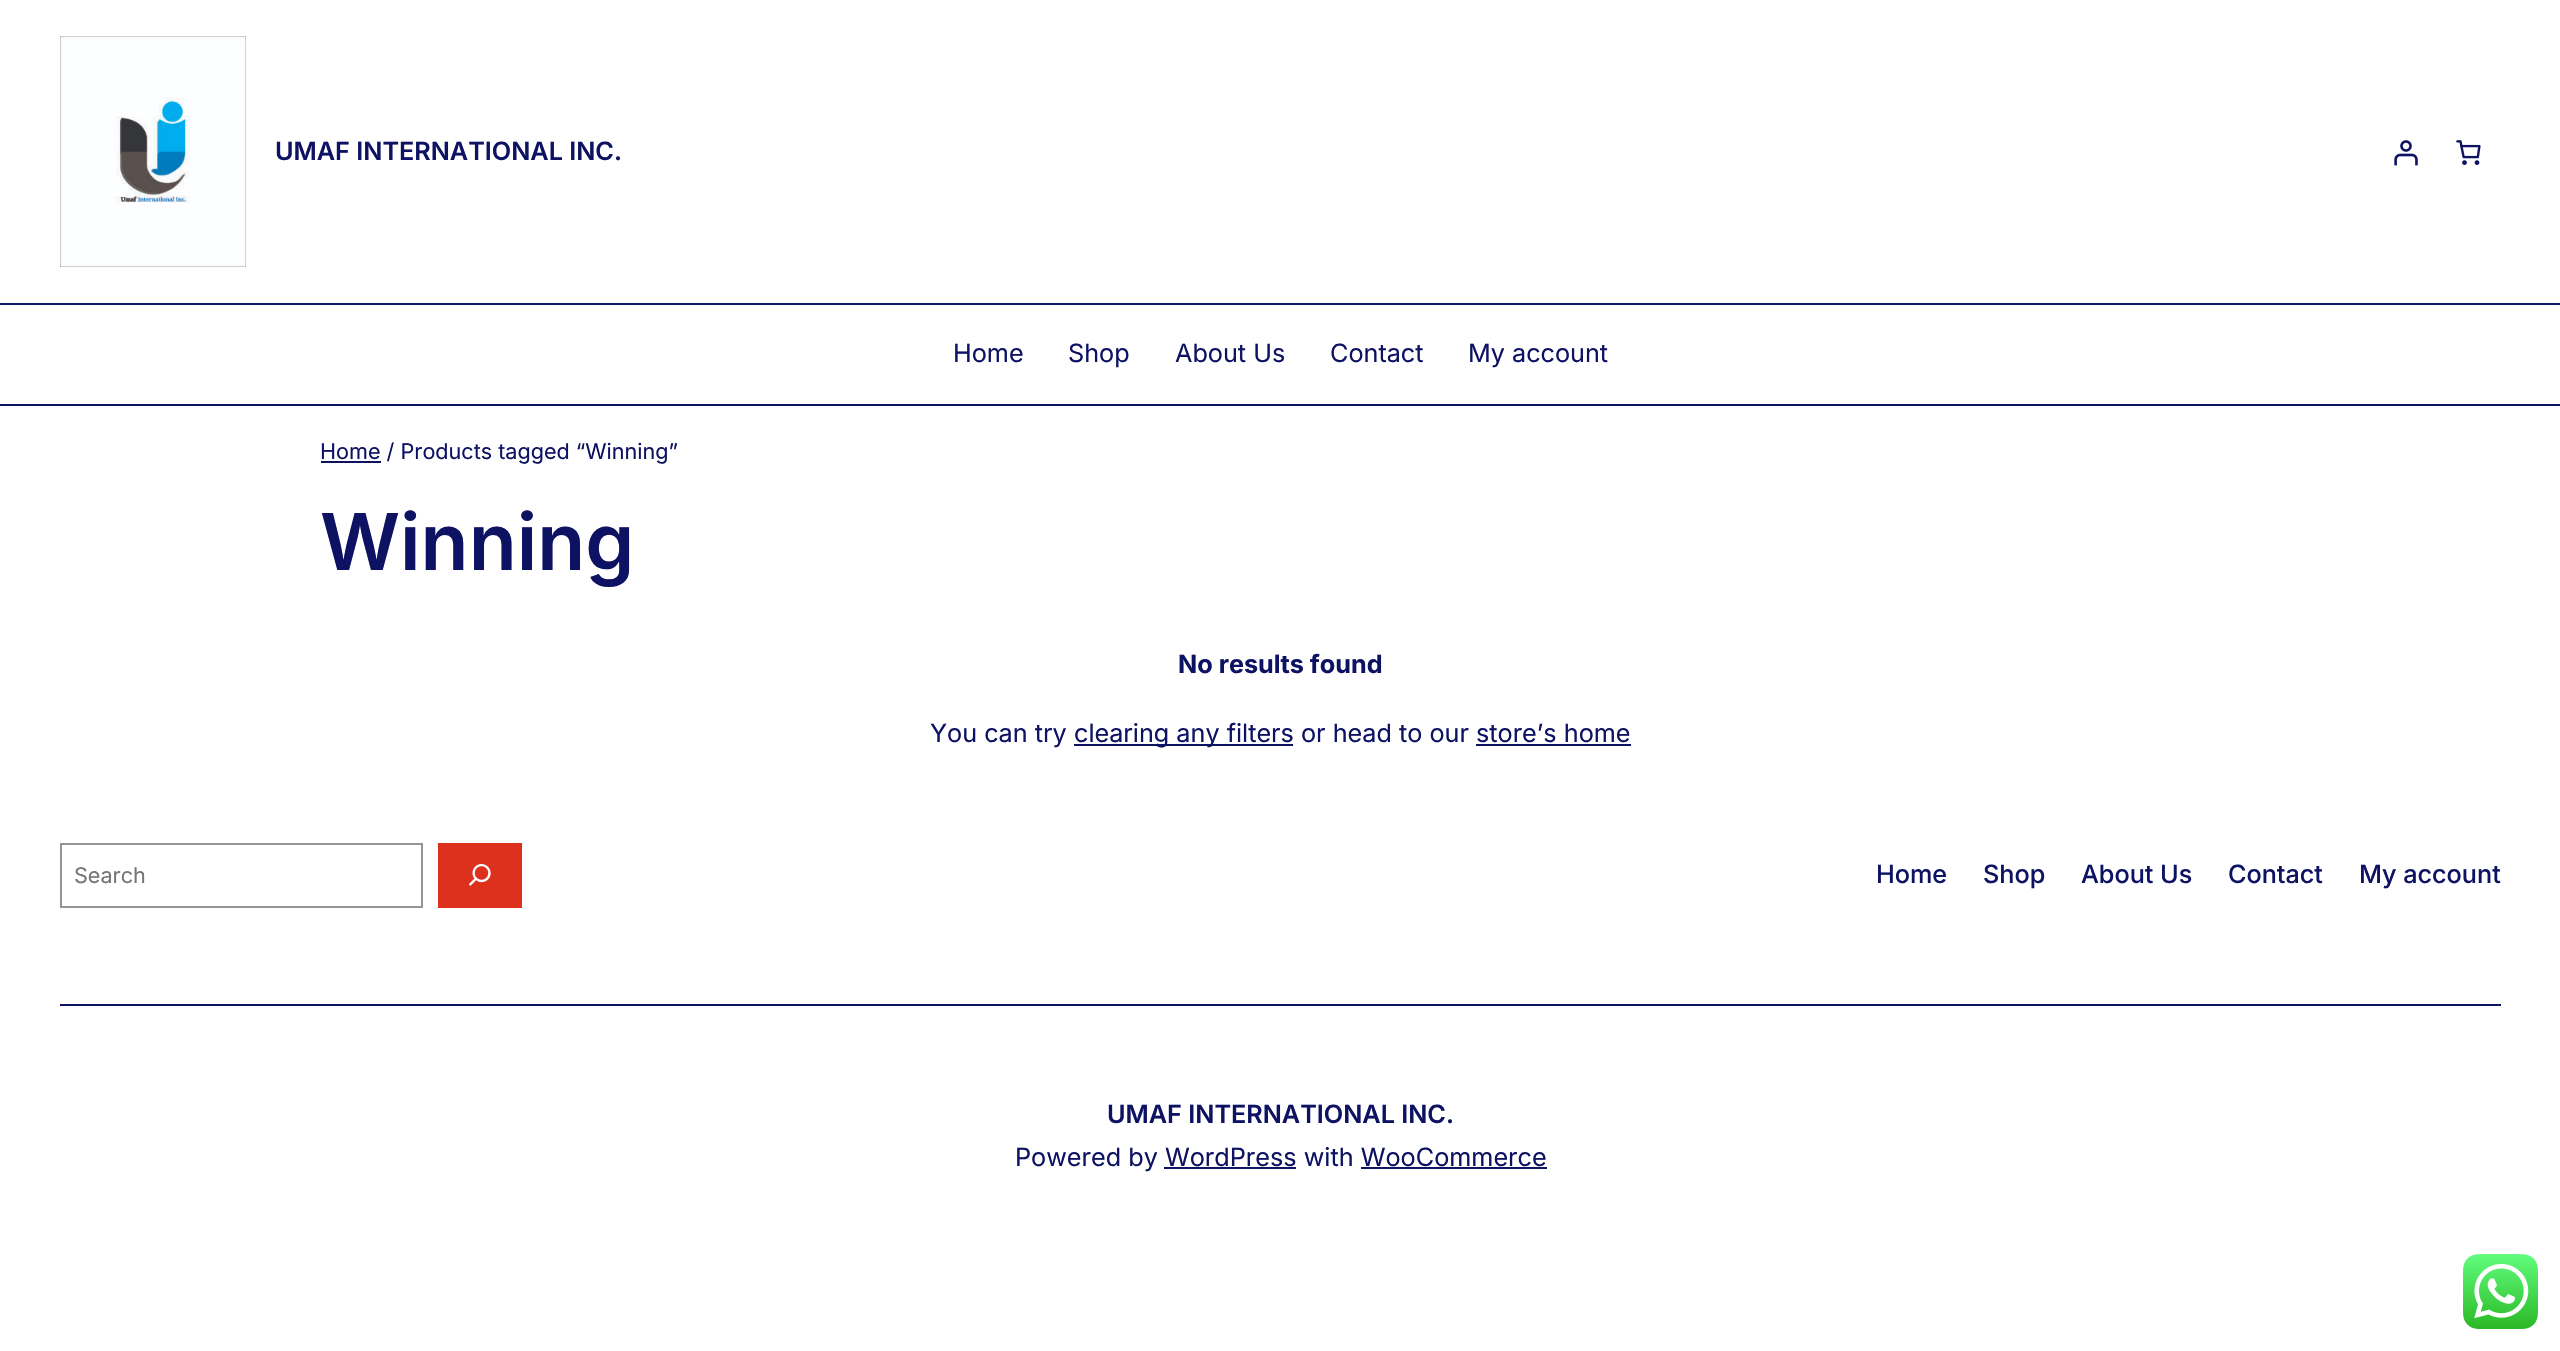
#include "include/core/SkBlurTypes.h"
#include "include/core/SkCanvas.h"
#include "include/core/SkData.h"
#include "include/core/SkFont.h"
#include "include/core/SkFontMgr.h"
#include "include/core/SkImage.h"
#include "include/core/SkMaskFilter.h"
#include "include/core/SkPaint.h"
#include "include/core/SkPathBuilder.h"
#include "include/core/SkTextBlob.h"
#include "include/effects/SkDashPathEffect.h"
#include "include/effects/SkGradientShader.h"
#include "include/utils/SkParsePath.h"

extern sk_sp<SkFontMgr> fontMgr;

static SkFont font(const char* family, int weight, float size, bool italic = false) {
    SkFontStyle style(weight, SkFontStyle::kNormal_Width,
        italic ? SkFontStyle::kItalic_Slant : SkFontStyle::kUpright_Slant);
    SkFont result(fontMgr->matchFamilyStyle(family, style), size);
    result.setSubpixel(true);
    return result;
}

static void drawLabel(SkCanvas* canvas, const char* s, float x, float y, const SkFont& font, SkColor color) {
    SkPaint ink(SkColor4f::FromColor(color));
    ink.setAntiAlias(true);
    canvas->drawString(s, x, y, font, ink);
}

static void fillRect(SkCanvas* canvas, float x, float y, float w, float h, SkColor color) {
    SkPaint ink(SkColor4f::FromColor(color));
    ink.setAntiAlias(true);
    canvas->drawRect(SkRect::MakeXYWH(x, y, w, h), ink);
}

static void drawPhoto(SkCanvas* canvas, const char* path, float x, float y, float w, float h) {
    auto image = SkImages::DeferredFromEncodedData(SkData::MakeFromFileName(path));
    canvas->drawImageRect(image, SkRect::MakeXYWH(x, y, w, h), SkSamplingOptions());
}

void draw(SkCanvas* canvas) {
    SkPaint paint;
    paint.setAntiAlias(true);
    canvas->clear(0xFFFFFFFF);
    drawPhoto(canvas, "assets/img1.png", 60, 36, 186, 231);
    SkFont font1 = font("Inter", 600, 25.2f);
    drawLabel(canvas, "UMAF INTERNATIONAL INC.", 275, 160, font1, 0xFF0D1263);
    drawPhoto(canvas, "assets/img2.png", 2394, 140, 24, 26);
    drawPhoto(canvas, "assets/img3.png", 2456, 140, 25, 25);
    fillRect(canvas, 0, 303, 2560, 2, 0xFF0D1263);
    SkFont font2 = font("Inter", 400, 25.2f);
    drawLabel(canvas, "Home", 953, 362, font2, 0xFF0D1263);
    drawLabel(canvas, "Shop", 1068, 362, font2, 0xFF0D1263);
    drawLabel(canvas, "About Us", 1175, 362, font2, 0xFF0D1263);
    drawLabel(canvas, "Contact", 1330, 362, font2, 0xFF0D1263);
    drawLabel(canvas, "My account", 1468, 362, font2, 0xFF0D1263);
    fillRect(canvas, 0, 404, 2560, 2, 0xFF0D1263);
    fillRect(canvas, 321, 461, 60, 2, 0xFF0D1263);
    SkFont font3 = font("Inter", 400, 21.6f);
    drawLabel(canvas, "Home / Products tagged “Winning”", 320, 459, font3, 0xFF0D1263);
    SkFont font4 = font("Inter", 600, 78.5f);
    drawLabel(canvas, "Winning", 320, 570, font4, 0xFF0D1263);
    SkFont font5 = font("Inter", 700, 25.2f);
    drawLabel(canvas, "No results found", 1178, 673, font5, 0xFF0D1263);
    drawLabel(canvas, "You can try", 930, 742, font2, 0xFF0D1263);
    fillRect(canvas, 1074, 744, 219, 2, 0xFF0D1263);
    drawLabel(canvas, "clearing any filters or head to our store’s home", 1074, 742, font2, 0xFF0D1263);
    fillRect(canvas, 1476, 744, 155, 2, 0xFF0D1263);
    paint.setStroke(true);
    paint.setStrokeWidth(2);
    paint.setColor(0xFF949494);
    canvas->drawRect(SkRect::MakeXYWH(61, 844, 361, 63), paint);
    drawLabel(canvas, "Search", 74, 883, font3, 0xFF757575);
    fillRect(canvas, 438, 843, 84, 65, 0xFFDD301D);
    drawPhoto(canvas, "assets/img4.png", 468, 864, 23, 22);
    SkFont font6 = font("Inter", 500, 25.2f);
    drawLabel(canvas, "Home", 1876, 883, font6, 0xFF0D1263);
    drawLabel(canvas, "Shop", 1983, 883, font6, 0xFF0D1263);
    drawLabel(canvas, "About Us", 2081, 883, font6, 0xFF0D1263);
    drawLabel(canvas, "Contact", 2228, 883, font6, 0xFF0D1263);
    drawLabel(canvas, "My account", 2359, 883, font6, 0xFF0D1263);
    fillRect(canvas, 60, 1004, 2441, 2, 0xFF0D1263);
    drawLabel(canvas, "UMAF INTERNATIONAL INC.", 1107, 1123, font1, 0xFF0D1263);
    drawLabel(canvas, "Powered by WordPress with WooCommerce", 1015, 1166, font2, 0xFF0D1263);
    fillRect(canvas, 1164, 1167, 132, 2, 0xFF0D1263);
    fillRect(canvas, 1361, 1167, 186, 2, 0xFF0D1263);
    drawPhoto(canvas, "assets/img5.png", 2463, 1254, 75, 75);
}
